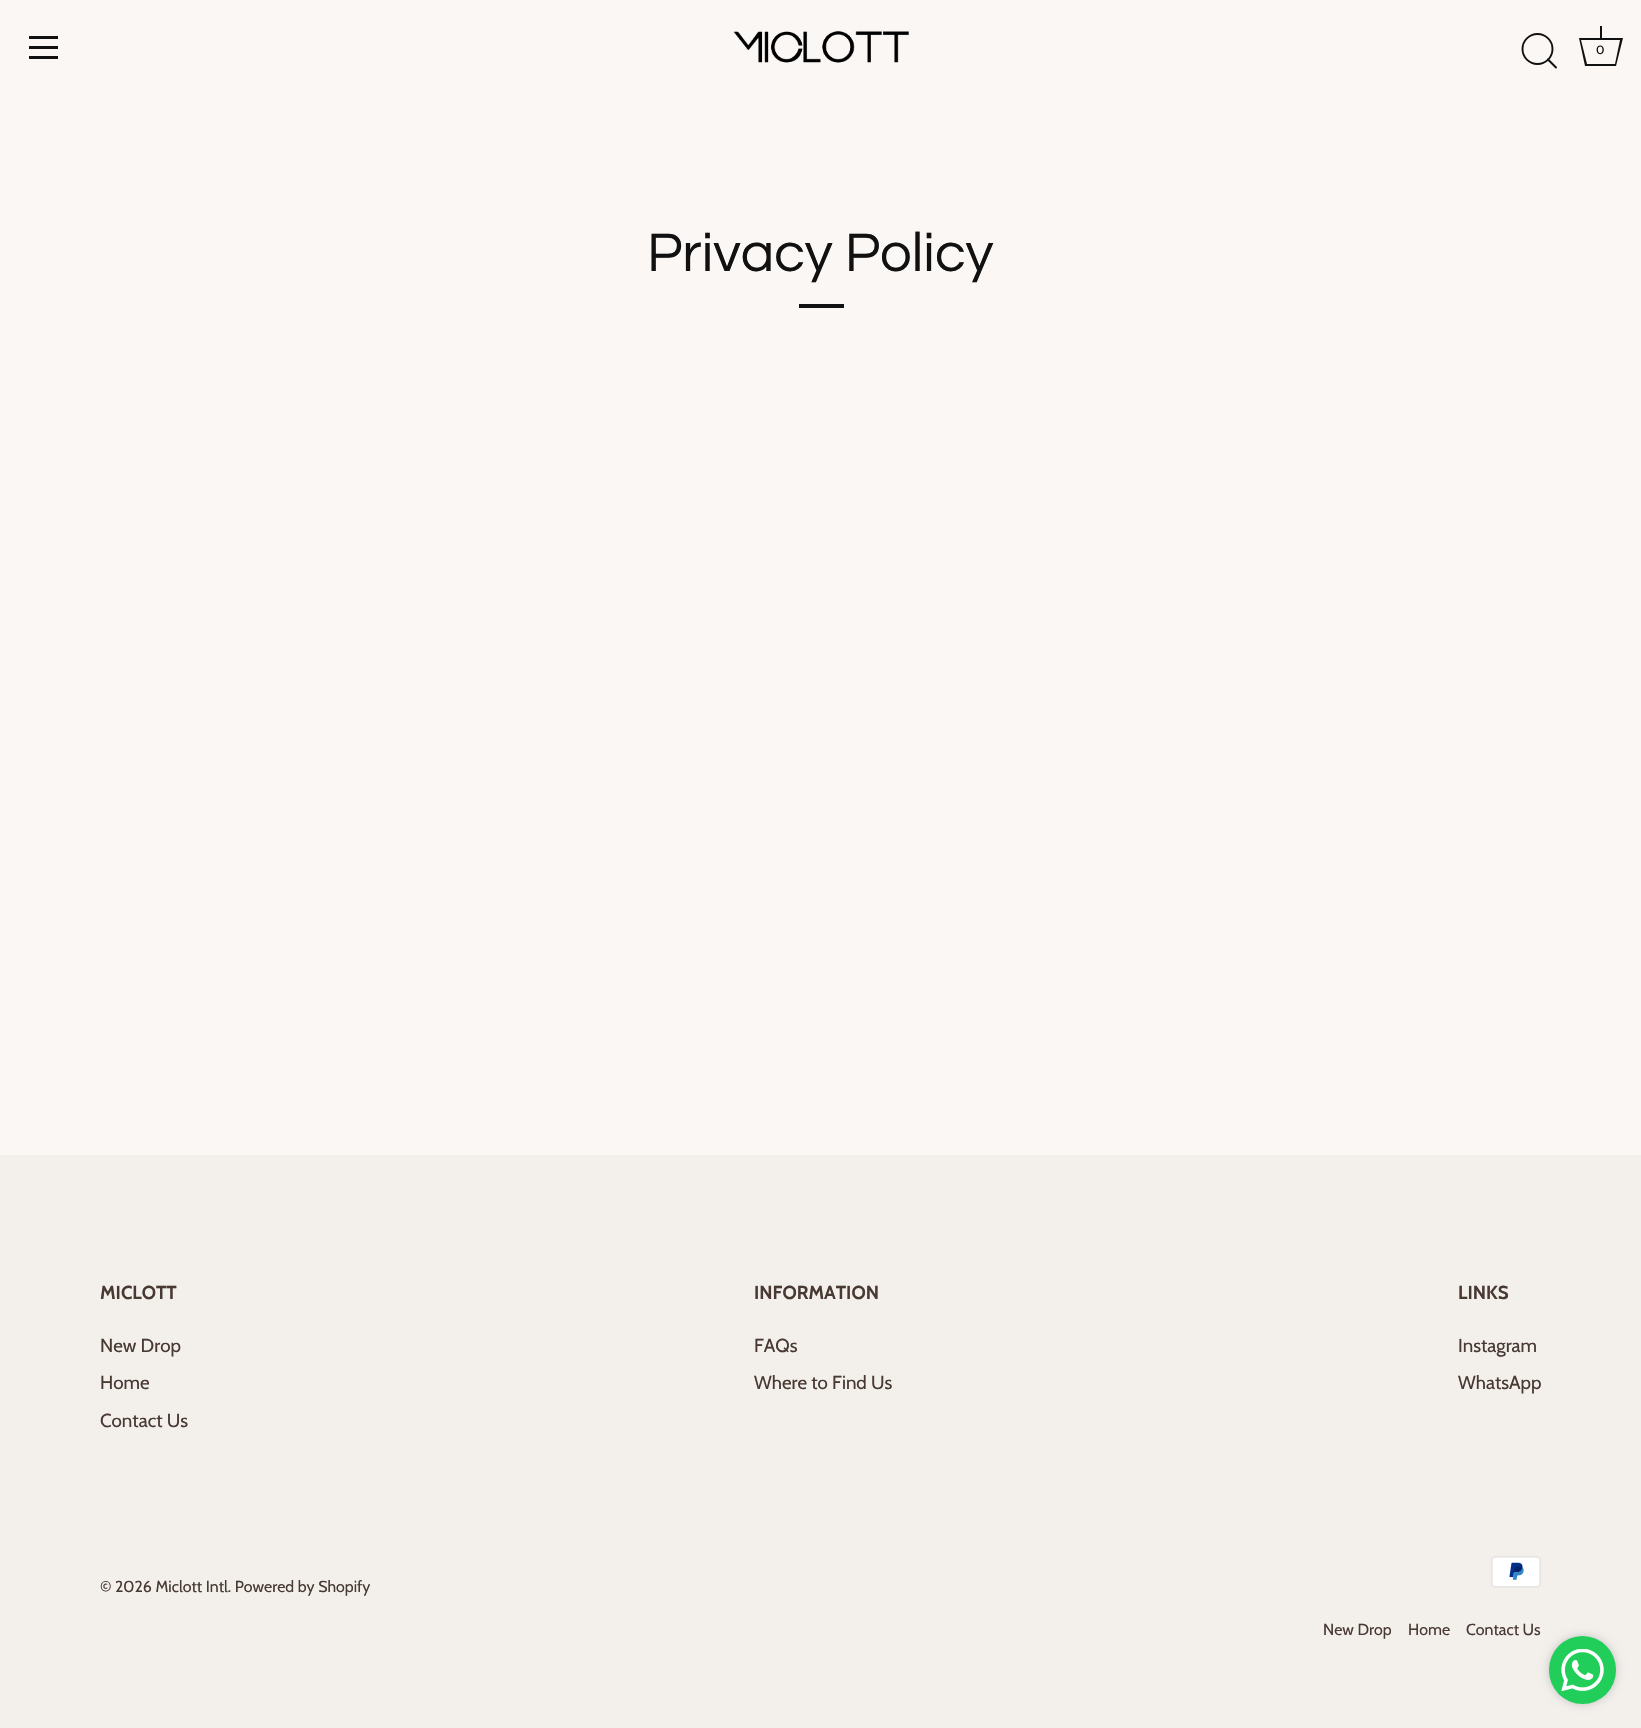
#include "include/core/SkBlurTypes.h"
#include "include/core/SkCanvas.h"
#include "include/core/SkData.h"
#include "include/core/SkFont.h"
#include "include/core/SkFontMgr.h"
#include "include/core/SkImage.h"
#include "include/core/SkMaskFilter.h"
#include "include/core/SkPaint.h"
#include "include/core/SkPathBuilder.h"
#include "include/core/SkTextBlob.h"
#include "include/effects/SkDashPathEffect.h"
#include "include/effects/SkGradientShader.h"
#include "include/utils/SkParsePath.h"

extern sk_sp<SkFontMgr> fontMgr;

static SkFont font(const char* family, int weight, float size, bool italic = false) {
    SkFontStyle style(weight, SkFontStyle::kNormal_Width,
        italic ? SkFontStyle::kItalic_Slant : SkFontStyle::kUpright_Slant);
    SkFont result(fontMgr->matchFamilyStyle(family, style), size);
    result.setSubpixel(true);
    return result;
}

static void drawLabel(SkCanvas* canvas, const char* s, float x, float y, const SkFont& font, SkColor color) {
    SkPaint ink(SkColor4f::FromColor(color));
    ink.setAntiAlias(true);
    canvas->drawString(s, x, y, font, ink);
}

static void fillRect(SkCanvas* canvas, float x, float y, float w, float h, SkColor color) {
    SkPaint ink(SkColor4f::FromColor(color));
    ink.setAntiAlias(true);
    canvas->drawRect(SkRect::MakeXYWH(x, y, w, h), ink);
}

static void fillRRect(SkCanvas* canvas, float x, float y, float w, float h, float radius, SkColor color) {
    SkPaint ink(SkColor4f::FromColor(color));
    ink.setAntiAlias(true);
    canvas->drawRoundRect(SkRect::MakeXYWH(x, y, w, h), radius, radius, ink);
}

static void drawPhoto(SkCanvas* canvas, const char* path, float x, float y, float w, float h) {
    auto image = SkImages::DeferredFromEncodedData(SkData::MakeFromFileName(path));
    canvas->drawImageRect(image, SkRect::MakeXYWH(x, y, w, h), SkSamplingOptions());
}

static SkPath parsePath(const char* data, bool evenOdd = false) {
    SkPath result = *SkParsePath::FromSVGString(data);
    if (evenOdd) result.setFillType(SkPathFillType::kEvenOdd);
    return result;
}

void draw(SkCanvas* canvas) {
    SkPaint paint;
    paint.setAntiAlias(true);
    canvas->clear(0xFFFBF7F5);
    fillRect(canvas, 29, 36, 29, 3, 0xFF111111);
    fillRect(canvas, 29, 46, 29, 3, 0xFF111111);
    fillRect(canvas, 29, 56, 29, 3, 0xFF111111);
    drawPhoto(canvas, "assets/img1.png", 733, 31, 176, 32);
    paint.setStroke(true);
    paint.setStrokeWidth(1.9f);
    paint.setColor(0xFF111111);
    canvas->drawCircle(1537.5f, 49, 15, paint);
    paint.setStrokeCap(SkPaint::kRound_Cap);
    paint.setStrokeJoin(SkPaint::kRound_Join);
    canvas->drawPath(parsePath("M1556 67.5L1548 59.5"), paint);
    fillRect(canvas, 1600, 26, 2, 12, 0xFF111111);
    paint.setStroke(false);
    canvas->drawPath(parsePath("M1620 40L1615 64H1587L1581 40H1620M1623 38H1579L1585 66H1616Z"), paint);
    SkFont font1 = font("Cabin", 400, 12);
    drawLabel(canvas, "0", 1596, 54, font1, 0xFF111111);
    SkFont font2 = font("Questrial", 400, 56.25f);
    drawLabel(canvas, "Privacy Policy", 647, 271, font2, 0xFF111111);
    fillRect(canvas, 799, 304, 45, 4, 0xFF111111);
    fillRect(canvas, 0, 1155, 1641, 573, 0xFFF3F0EC);
    SkFont font3 = font("Cabin", 700, 18.75f);
    drawLabel(canvas, "MICLOTT", 100, 1299, font3, 0xFF483933);
    SkFont font4 = font("Cabin", 400, 18.75f);
    drawLabel(canvas, "New Drop", 100, 1352, font4, 0xFF483933);
    drawLabel(canvas, "Home", 100, 1389, font4, 0xFF483933);
    drawLabel(canvas, "Contact Us", 100, 1427, font4, 0xFF483933);
    drawLabel(canvas, "INFORMATION", 754, 1299, font3, 0xFF483933);
    drawLabel(canvas, "FAQs", 754, 1352, font4, 0xFF483933);
    drawLabel(canvas, "Where to Find Us", 754, 1389, font4, 0xFF483933);
    drawLabel(canvas, "LINKS", 1458, 1299, font3, 0xFF483933);
    drawLabel(canvas, "Instagram", 1458, 1352, font4, 0xFF483933);
    drawLabel(canvas, "WhatsApp", 1458, 1389, font4, 0xFF483933);
    SkFont font5 = font("Cabin", 400, 15.9f);
    drawLabel(canvas, "© 2026 Miclott Intl. Powered by Shopify", 100, 1592, font5, 0xFF483933);
    drawPhoto(canvas, "assets/img2.png", 1491, 1556, 50, 32);
    drawLabel(canvas, "New Drop", 1323, 1635, font5, 0xFF483933);
    drawLabel(canvas, "Home", 1408, 1635, font5, 0xFF483933);
    drawLabel(canvas, "Contact Us", 1466, 1635, font5, 0xFF483933);
    paint.setColor(0xFFC2C2C2);
    paint.setMaskFilter(SkMaskFilter::MakeBlur(kNormal_SkBlurStyle, 5));
    canvas->drawRoundRect(SkRect::MakeXYWH(1549, 1636, 67, 68), 33.5f, 33.5f, paint);
    paint.setMaskFilter(nullptr);
    fillRRect(canvas, 1549, 1636, 67, 68, 33.5f, 0xFF22CE5A);
    drawPhoto(canvas, "assets/img3.png", 1561, 1649, 43, 42);
}
